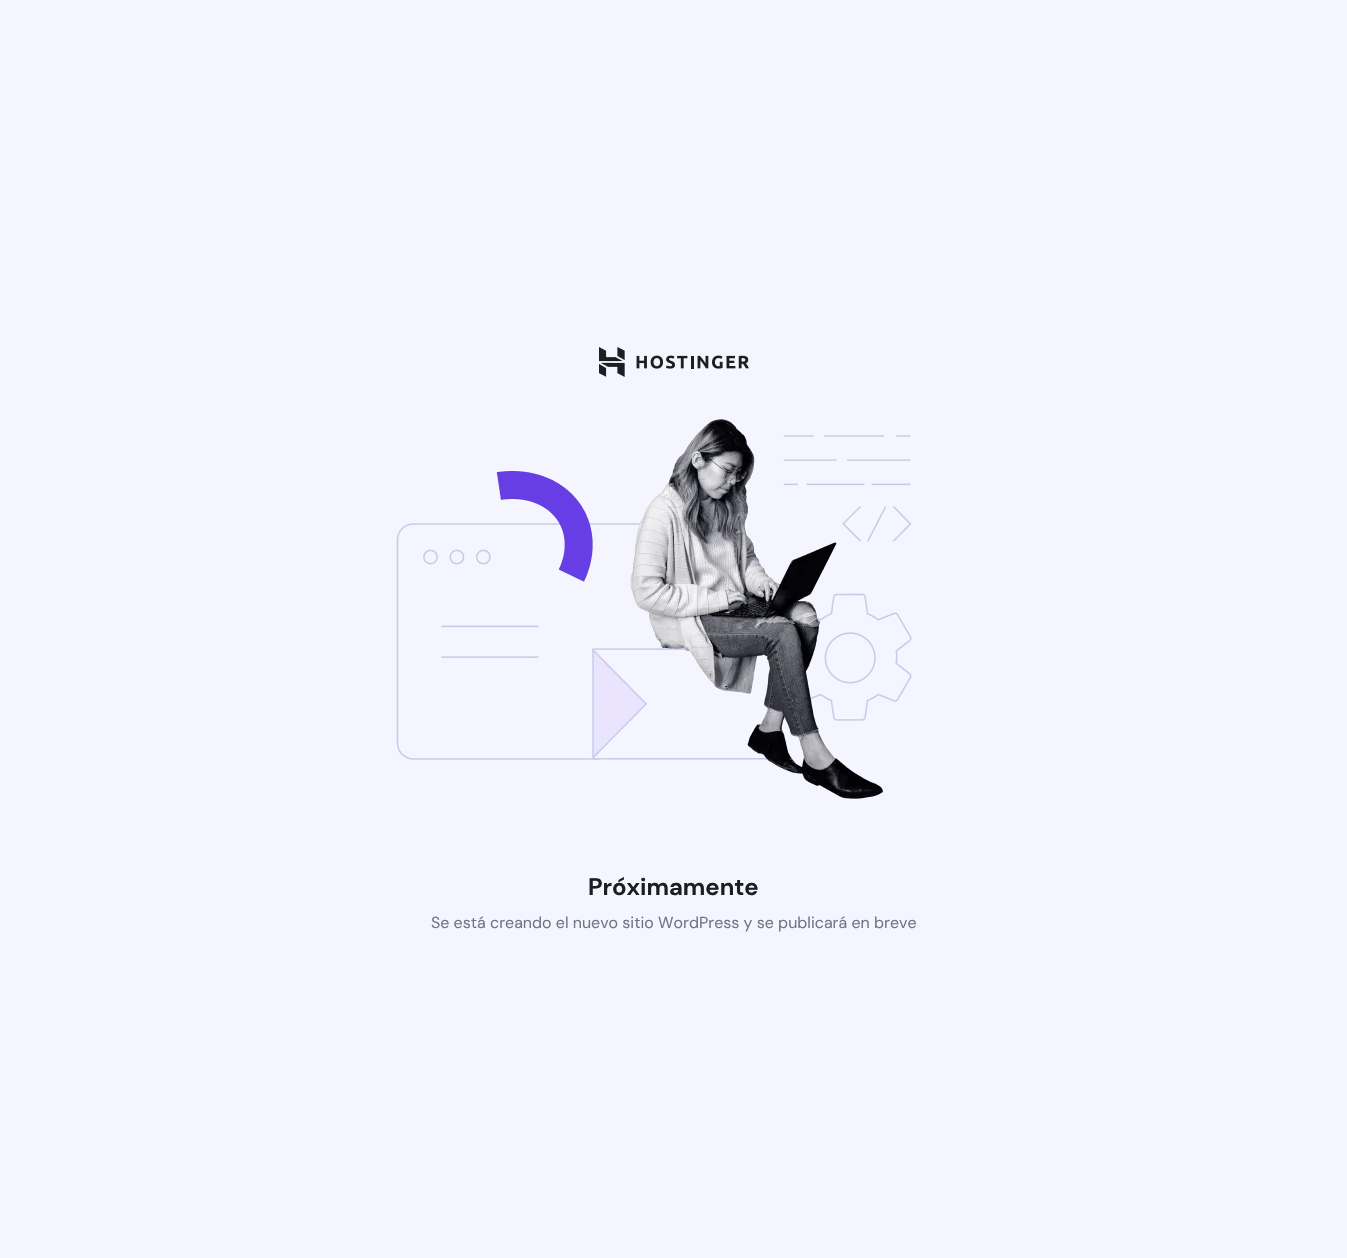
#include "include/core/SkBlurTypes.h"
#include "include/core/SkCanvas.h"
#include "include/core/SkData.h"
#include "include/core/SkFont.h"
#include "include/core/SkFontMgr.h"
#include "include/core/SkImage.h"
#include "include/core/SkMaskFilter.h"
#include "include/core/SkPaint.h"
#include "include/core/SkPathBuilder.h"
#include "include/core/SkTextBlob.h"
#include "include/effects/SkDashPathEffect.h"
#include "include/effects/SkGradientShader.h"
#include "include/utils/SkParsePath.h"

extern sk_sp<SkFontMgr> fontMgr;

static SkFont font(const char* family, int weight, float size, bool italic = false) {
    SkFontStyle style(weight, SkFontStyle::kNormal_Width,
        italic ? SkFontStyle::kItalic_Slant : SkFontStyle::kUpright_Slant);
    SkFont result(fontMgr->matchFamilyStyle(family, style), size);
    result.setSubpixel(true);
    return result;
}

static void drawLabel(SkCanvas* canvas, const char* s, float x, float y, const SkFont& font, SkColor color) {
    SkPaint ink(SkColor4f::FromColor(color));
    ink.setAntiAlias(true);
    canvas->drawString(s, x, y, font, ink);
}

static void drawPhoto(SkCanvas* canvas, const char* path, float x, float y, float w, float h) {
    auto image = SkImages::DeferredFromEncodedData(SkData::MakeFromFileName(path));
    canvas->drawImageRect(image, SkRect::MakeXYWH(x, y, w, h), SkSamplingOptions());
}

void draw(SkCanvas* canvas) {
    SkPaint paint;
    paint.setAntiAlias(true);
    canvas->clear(0xFFF4F5FF);
    drawPhoto(canvas, "assets/img1.png", 599, 347, 150, 30);
    drawPhoto(canvas, "assets/img2.png", 396, 419, 516, 380);
    SkFont font1 = font("DM Sans", 700, 24);
    drawLabel(canvas, "Próximamente", 588, 895, font1, 0xFF1D1E20);
    SkFont font2 = font("DM Sans", 400, 16);
    drawLabel(canvas, "Se está creando el nuevo sitio WordPress y se publicará en breve", 431, 928, font2, 0xFF727586);
}
